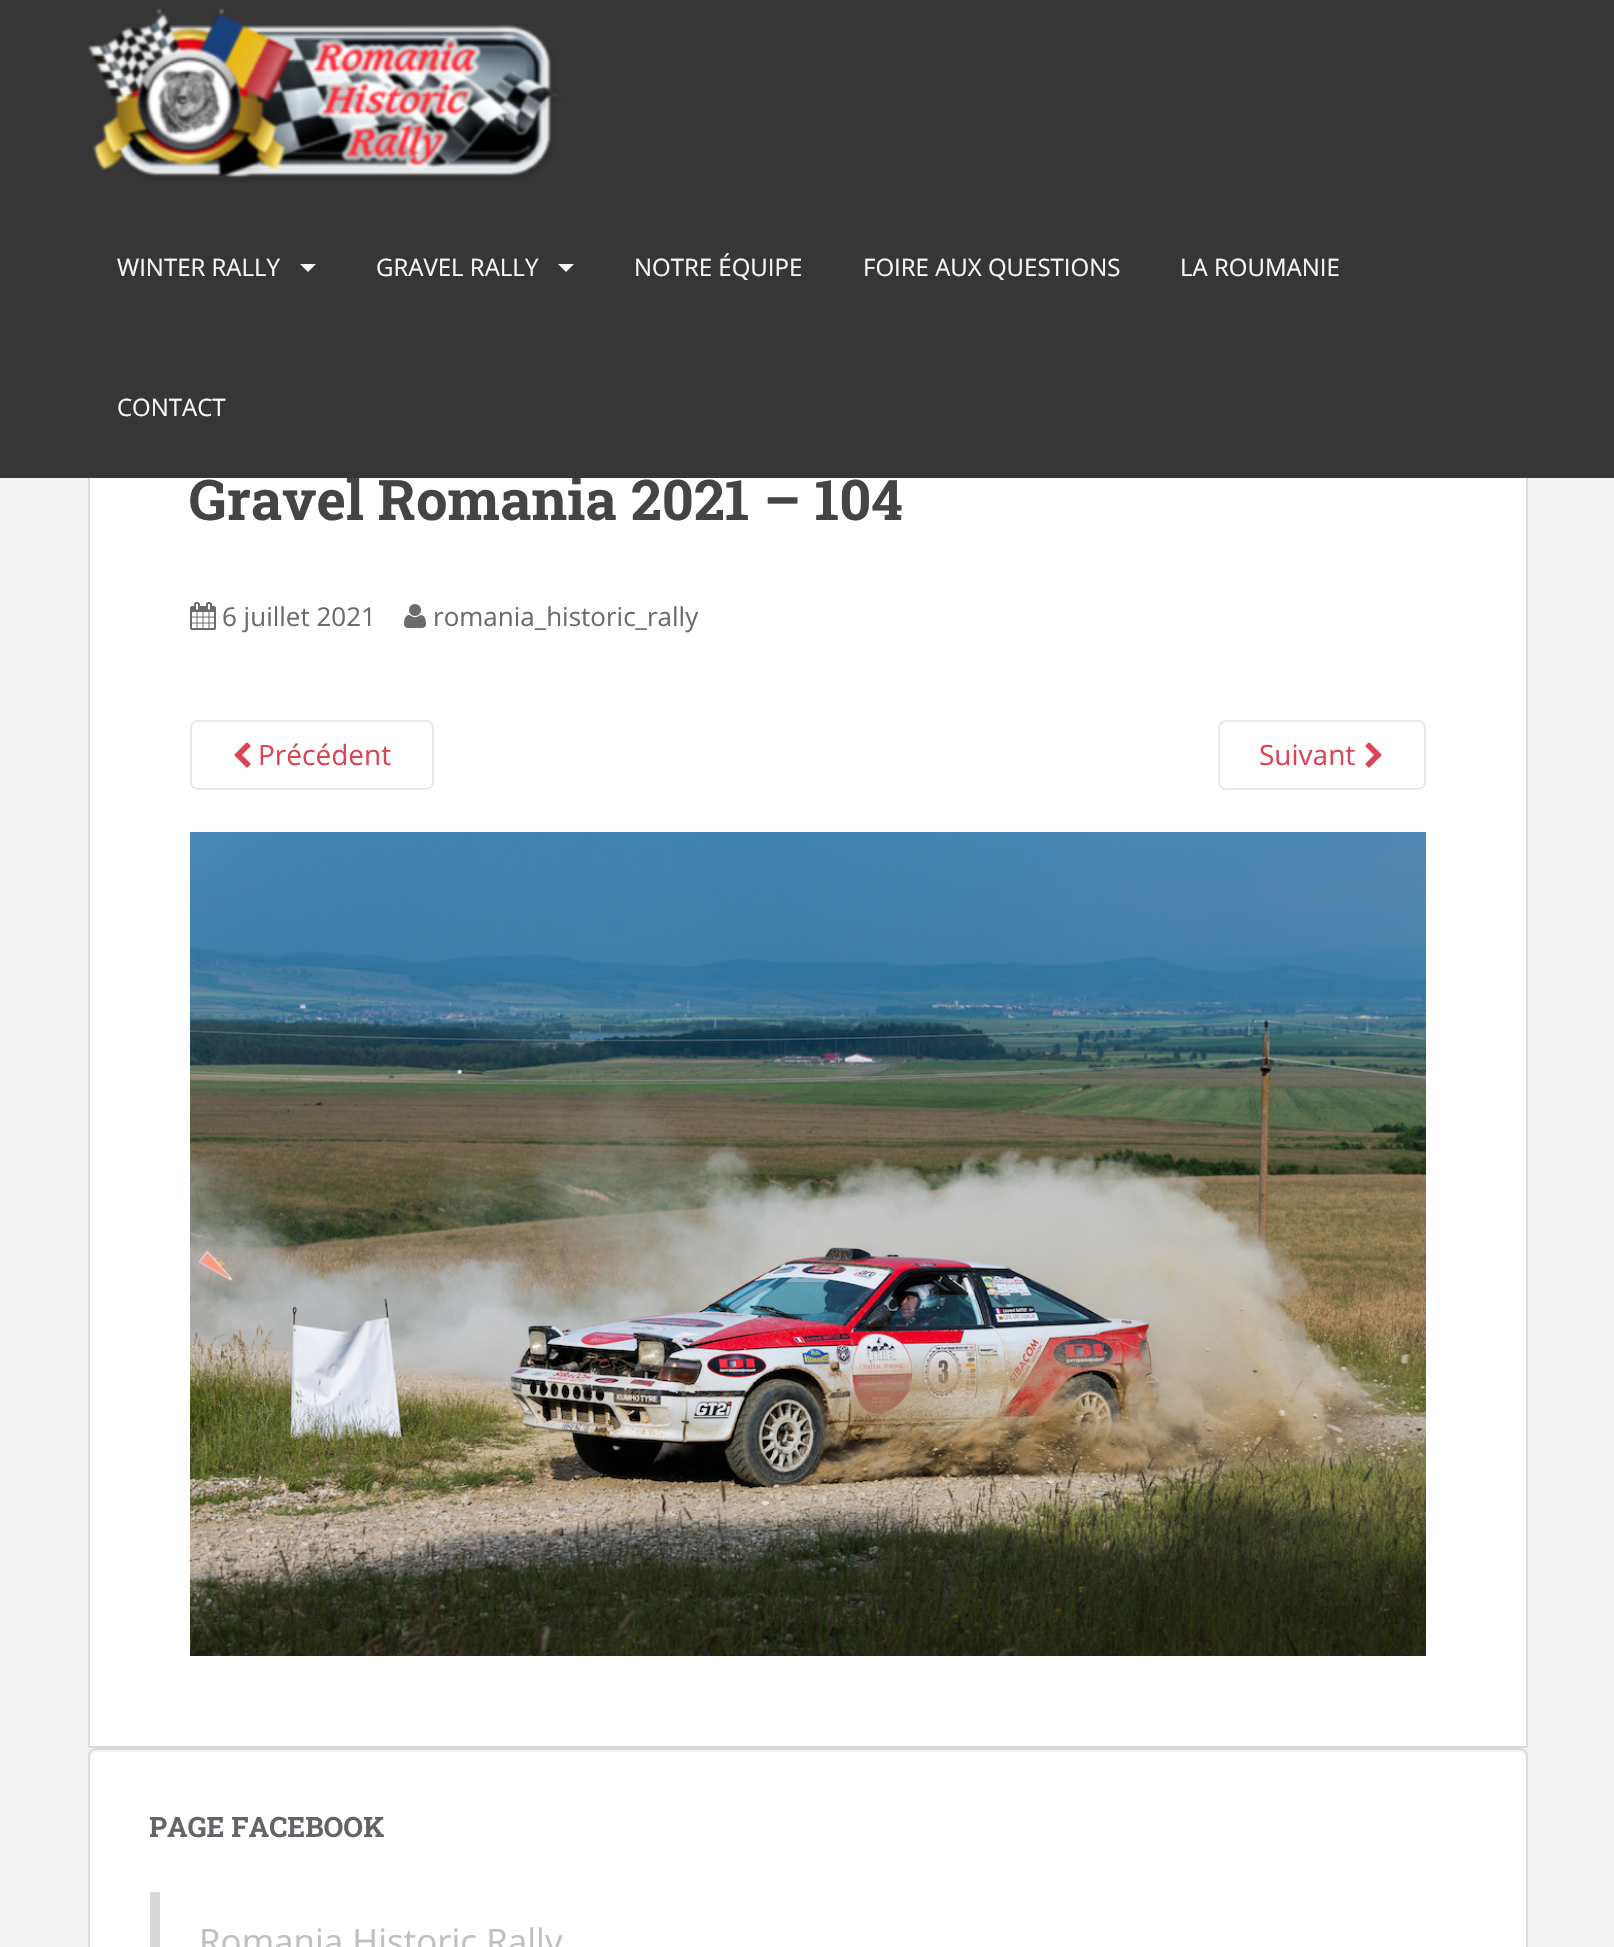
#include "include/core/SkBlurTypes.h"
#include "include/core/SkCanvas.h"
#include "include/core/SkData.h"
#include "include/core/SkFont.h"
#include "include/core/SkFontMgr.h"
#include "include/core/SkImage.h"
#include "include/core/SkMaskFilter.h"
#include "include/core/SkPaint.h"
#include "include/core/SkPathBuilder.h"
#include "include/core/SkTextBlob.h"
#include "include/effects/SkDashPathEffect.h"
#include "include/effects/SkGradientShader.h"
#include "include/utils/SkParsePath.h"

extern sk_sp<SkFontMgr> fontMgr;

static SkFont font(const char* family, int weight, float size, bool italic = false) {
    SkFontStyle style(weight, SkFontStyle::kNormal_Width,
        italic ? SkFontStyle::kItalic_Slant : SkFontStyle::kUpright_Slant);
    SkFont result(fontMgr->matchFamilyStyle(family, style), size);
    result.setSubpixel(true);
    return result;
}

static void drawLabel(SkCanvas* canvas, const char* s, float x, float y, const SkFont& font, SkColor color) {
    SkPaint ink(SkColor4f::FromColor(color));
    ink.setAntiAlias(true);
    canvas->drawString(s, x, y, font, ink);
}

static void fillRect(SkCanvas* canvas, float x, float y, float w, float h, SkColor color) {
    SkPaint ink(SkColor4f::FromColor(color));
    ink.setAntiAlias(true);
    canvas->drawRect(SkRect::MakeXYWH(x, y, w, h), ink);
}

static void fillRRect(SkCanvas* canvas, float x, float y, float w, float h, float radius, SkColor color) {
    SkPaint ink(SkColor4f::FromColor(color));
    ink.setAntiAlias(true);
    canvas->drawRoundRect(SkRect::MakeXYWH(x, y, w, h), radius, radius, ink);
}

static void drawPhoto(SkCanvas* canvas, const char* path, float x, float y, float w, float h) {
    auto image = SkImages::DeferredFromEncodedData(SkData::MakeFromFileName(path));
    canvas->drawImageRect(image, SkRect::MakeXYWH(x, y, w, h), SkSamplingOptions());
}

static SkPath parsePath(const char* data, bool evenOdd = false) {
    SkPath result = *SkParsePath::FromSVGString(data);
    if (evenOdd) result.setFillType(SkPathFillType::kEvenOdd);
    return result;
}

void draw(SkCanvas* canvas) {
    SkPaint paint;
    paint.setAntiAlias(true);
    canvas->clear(0xFFF2F2F2);
    fillRect(canvas, 90, 478, 1436, 1268, 0xFFFFFFFF);
    paint.setStroke(true);
    paint.setStrokeWidth(2);
    paint.setColor(0xFFDADADA);
    canvas->drawRect(SkRect::MakeXYWH(89, 379, 1438, 1368), paint);
    SkFont font1 = font("Roboto Slab", 700, 56);
    drawLabel(canvas, "Gravel Romania 2021 – 104", 189, 520, font1, 0xFF444444);
    fillRect(canvas, 0, 0, 1614, 478, 0xFF363636);
    drawPhoto(canvas, "assets/img1.png", 87, 8, 474, 174);
    SkFont font2 = font("Open Sans", 400, 24);
    drawLabel(canvas, "WINTER RALLY", 117, 276, font2, 0xFFF5F7FA);
    paint.setStroke(false);
    paint.setColor(0xFFF5F7FA);
    canvas->drawPath(parsePath("M300 264H316L308 272Z"), paint);
    drawLabel(canvas, "GRAVEL RALLY", 376, 276, font2, 0xFFF5F7FA);
    canvas->drawPath(parsePath("M558 264H574L566 272Z"), paint);
    drawLabel(canvas, "NOTRE ÉQUIPE", 634, 276, font2, 0xFFF5F7FA);
    drawLabel(canvas, "FOIRE AUX QUESTIONS", 863, 276, font2, 0xFFF5F7FA);
    drawLabel(canvas, "LA ROUMANIE", 1180, 276, font2, 0xFFF5F7FA);
    drawLabel(canvas, "CONTACT", 117, 416, font2, 0xFFF5F7FA);
    drawPhoto(canvas, "assets/img2.png", 190, 602, 26, 28);
    SkFont font3 = font("Open Sans", 400, 26);
    drawLabel(canvas, "6 juillet 2021", 222, 626, font3, 0xFF6B6B6B);
    drawPhoto(canvas, "assets/img3.png", 404, 604, 22, 24);
    drawLabel(canvas, "romania_historic_rally", 433, 626, font3, 0xFF6B6B6B);
    paint.setStroke(true);
    paint.setColor(0xFFE8E8E8);
    canvas->drawRoundRect(SkRect::MakeXYWH(191, 721, 242, 68), 7, 7, paint);
    drawPhoto(canvas, "assets/img4.png", 234, 742, 17, 26);
    SkFont font4 = font("Open Sans", 400, 28);
    drawLabel(canvas, "Précédent", 258, 765, font4, 0xFFDA4453);
    canvas->drawRoundRect(SkRect::MakeXYWH(1219, 721, 206, 68), 7, 7, paint);
    drawLabel(canvas, "Suivant", 1259, 765, font4, 0xFFDA4453);
    drawPhoto(canvas, "assets/img5.png", 1365, 742, 17, 26);
    drawPhoto(canvas, "assets/img6.png", 190, 832, 1236, 824);
    fillRRect(canvas, 88, 1748, 1440, 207, 8, 0xFFFFFFFF);
    paint.setStroke(false);
    paint.setColor(0xFFF2F2F2);
    canvas->drawPath(parsePath("M96 1752H1520C1523 1752 1526 1755 1526 1758C1526 1754 1525 1750 1520 1750H96C91 1750 90 1754 90 1758C90 1755 93 1752 96 1752Z"), paint);
    paint.setStroke(true);
    paint.setColor(0xFFDADADA);
    canvas->drawRoundRect(SkRect::MakeXYWH(89, 1749, 1438, 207), 7, 7, paint);
    canvas->save();
    canvas->clipRect(SkRect::MakeXYWH(150, 1810, 1316, 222));
    SkFont font5 = font("Roboto Slab", 700, 28);
    drawLabel(canvas, "PAGE FACEBOOK", 149, 1837, font5, 0xFF636467);
    canvas->restore();
    fillRect(canvas, 150, 1892, 10, 55, 0xFFD9D9D9);
    SkFont font6 = font("Open Sans", 400, 35);
    drawLabel(canvas, "Romania Historic Rally", 199, 1954, font6, 0xFFC1C0C0);
}
